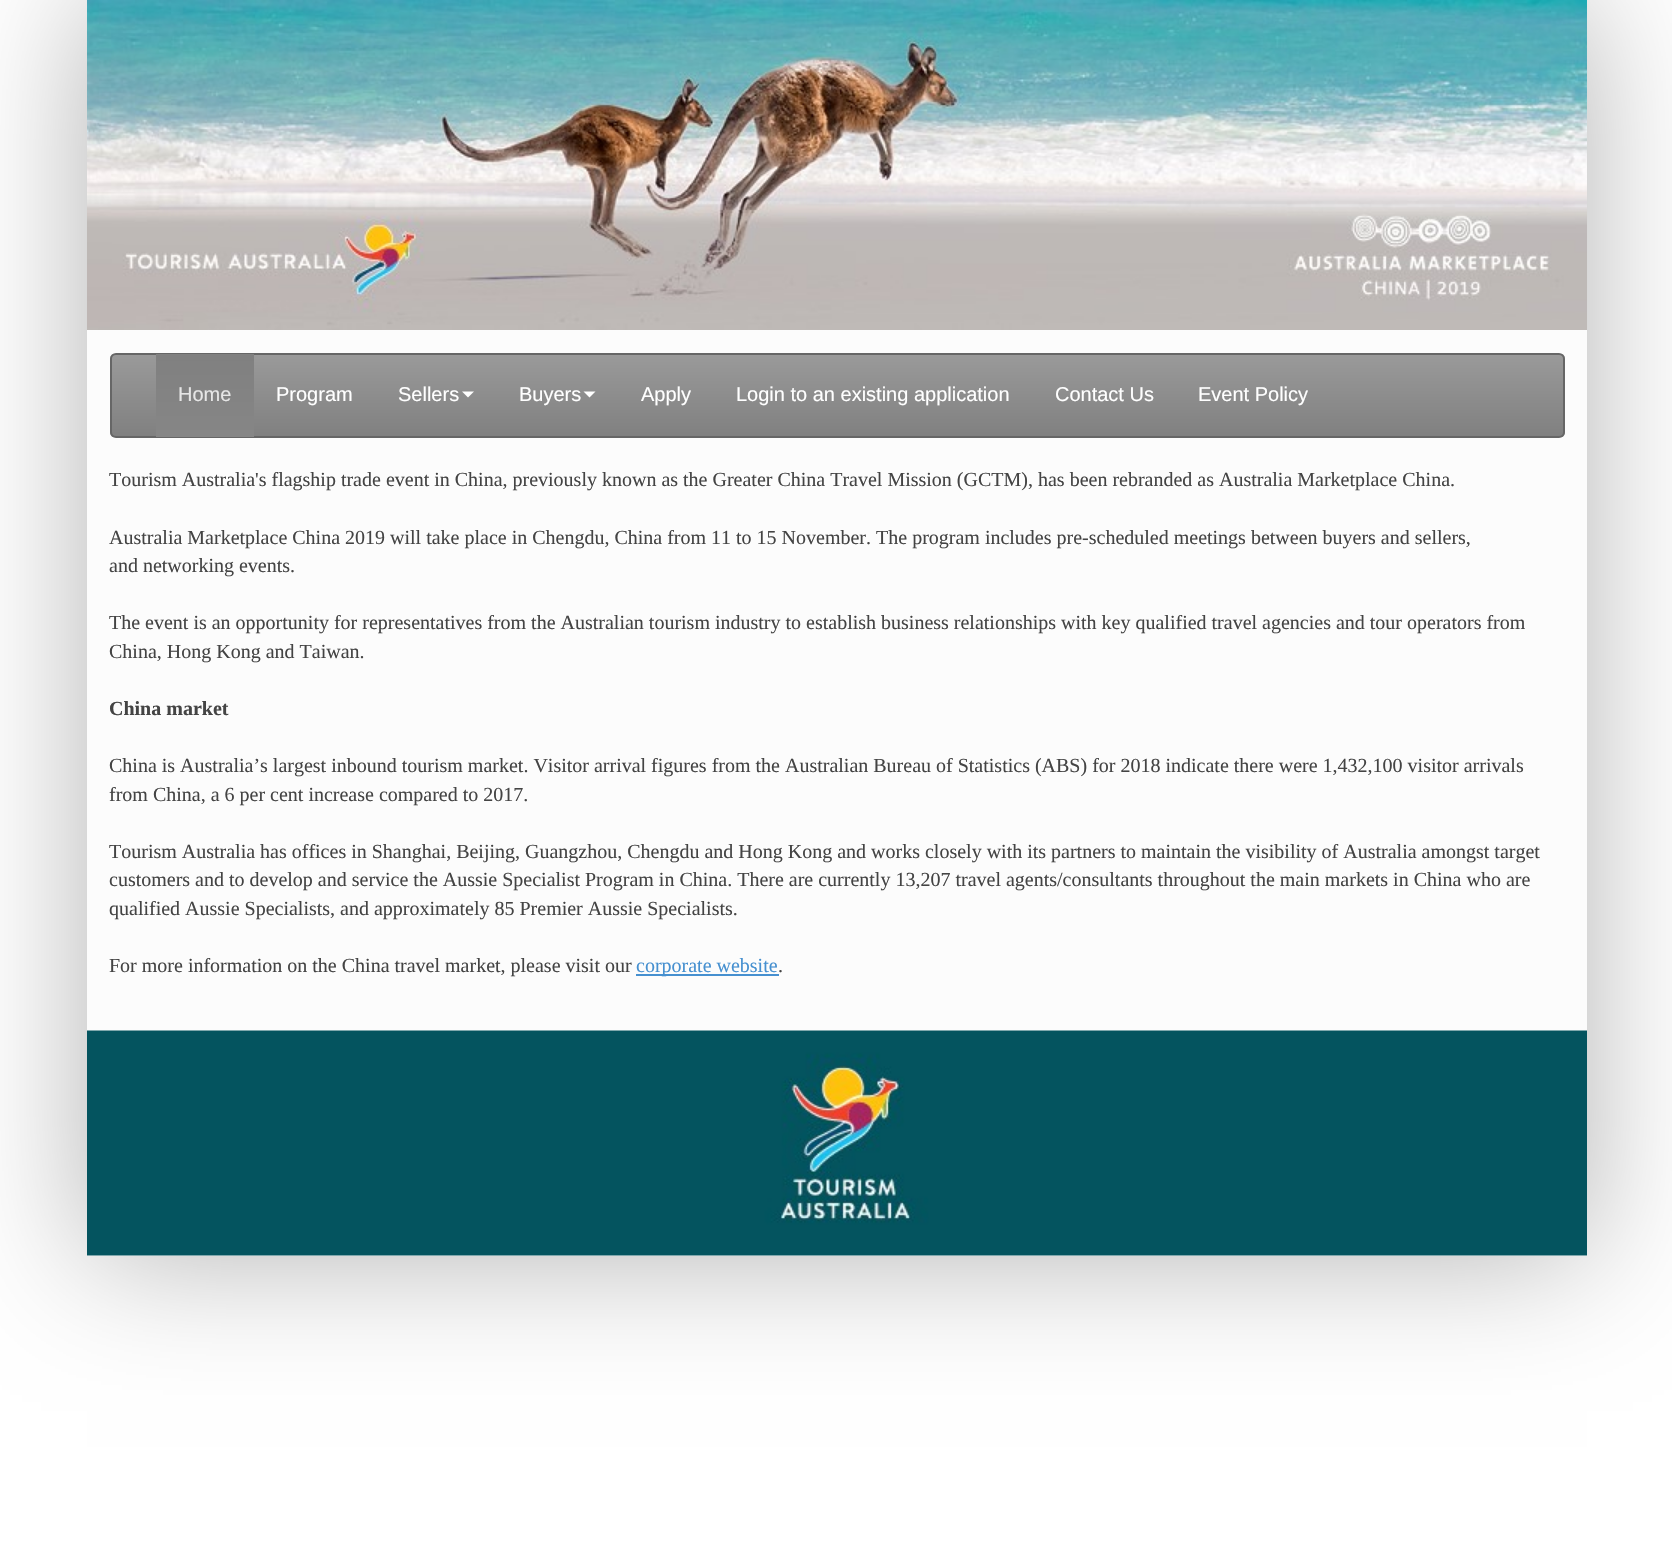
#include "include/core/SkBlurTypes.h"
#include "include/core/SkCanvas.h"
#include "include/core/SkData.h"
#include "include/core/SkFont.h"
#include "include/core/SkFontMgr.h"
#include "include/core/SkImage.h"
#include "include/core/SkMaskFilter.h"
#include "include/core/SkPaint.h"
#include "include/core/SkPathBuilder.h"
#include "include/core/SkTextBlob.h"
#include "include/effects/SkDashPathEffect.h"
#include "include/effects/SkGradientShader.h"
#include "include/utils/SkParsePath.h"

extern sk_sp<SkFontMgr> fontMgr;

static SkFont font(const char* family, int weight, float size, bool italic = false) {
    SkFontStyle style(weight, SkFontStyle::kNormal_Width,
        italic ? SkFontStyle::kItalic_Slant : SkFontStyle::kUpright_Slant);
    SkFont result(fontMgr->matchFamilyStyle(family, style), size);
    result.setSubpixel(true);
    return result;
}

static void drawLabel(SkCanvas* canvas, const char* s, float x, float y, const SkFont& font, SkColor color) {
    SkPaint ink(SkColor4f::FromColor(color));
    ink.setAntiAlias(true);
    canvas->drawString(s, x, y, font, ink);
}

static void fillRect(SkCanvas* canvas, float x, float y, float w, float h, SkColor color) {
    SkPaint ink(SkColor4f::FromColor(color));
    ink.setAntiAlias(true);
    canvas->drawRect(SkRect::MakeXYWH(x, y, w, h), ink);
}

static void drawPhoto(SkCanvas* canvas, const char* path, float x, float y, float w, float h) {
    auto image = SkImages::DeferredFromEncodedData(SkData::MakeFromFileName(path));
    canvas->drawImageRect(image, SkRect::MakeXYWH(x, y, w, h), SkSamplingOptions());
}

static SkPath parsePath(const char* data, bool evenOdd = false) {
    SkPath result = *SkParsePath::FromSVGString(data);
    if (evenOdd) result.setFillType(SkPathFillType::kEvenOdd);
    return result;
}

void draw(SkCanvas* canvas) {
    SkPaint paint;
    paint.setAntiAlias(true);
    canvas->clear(0xFFFFFFFF);
    paint.setColor(0x4D000000);
    paint.setMaskFilter(SkMaskFilter::MakeBlur(kNormal_SkBlurStyle, 64));
    canvas->drawRect(SkRect::MakeXYWH(87, 0, 1500, 1256), paint);
    paint.setMaskFilter(nullptr);
    fillRect(canvas, 87, 330, 1500, 926, 0xFFFCFCFC);
    drawPhoto(canvas, "assets/img1.png", 87, 0, 1500, 330);
    canvas->save();
    canvas->clipPath(parsePath("M116 353H1559C1562.5 353 1565 355.5 1565 359V432C1565 435.5 1562.5 438 1559 438H116C112.5 438 110 435.5 110 432V359C110 355.5 112.5 353 116 353Z"), true);
    {
        const SkColor colors[] = {0xFF9A9A9A, 0xFF808080};
        const float stops[] = {0, 1};
        const SkPoint ends[] = {{837, 354}, {837, 437}};
        paint.setShader(SkGradientShader::MakeLinear(ends, colors, stops, 2, SkTileMode::kClamp));
        paint.setAlpha(255);
    }
    canvas->drawRect(SkRect::MakeXYWH(110, 354, 1455, 83), paint);
    canvas->restore();
    paint.setStroke(true);
    paint.setStrokeWidth(2);
    paint.setShader(nullptr);
    paint.setColor(0xFF666666);
    canvas->drawRoundRect(SkRect::MakeXYWH(111, 354, 1453, 83), 5, 5, paint);
    paint.setStroke(false);
    {
        const SkColor colors[] = {0xFF808080, 0xFF868686};
        const float stops[] = {0, 1};
        const SkPoint ends[] = {{205, 354}, {205, 437}};
        paint.setShader(SkGradientShader::MakeLinear(ends, colors, stops, 2, SkTileMode::kClamp));
        paint.setAlpha(255);
    }
    canvas->drawRect(SkRect::MakeXYWH(156, 354, 98, 83), paint);
    SkFont font1 = font("Liberation Sans", 400, 20);
    drawLabel(canvas, "Home", 178, 401, font1, 0xFFE6E6E6);
    drawLabel(canvas, "Program", 276, 401, font1, 0xFFFFFFFF);
    drawLabel(canvas, "Sellers", 398, 401, font1, 0xFFFFFFFF);
    paint.setShader(nullptr);
    paint.setColor(0xFFFFFFFF);
    canvas->drawPath(parsePath("M462 391.5H474L468 397.5Z"), paint);
    drawLabel(canvas, "Buyers", 519, 401, font1, 0xFFFFFFFF);
    canvas->drawPath(parsePath("M583.5 391.5H595.5L589.5 397.5Z"), paint);
    drawLabel(canvas, "Apply", 641, 401, font1, 0xFFFFFFFF);
    drawLabel(canvas, "Login to an existing application", 736, 401, font1, 0xFFFFFFFF);
    drawLabel(canvas, "Contact Us", 1055, 401, font1, 0xFFFFFFFF);
    drawLabel(canvas, "Event Policy", 1198, 401, font1, 0xFFFFFFFF);
    SkFont font2 = font("Liberation Serif", 400, 20);
    drawLabel(canvas, "Tourism Australia's flagship trade event in China, previously known as the Greater China Travel Mission (GCTM), has been rebranded as Australia Marketplace China.", 109, 486, font2, 0xFF444444);
    drawLabel(canvas, "Australia Marketplace China 2019 will take place in Chengdu, China from 11 to 15 November. The program includes pre-scheduled meetings between buyers and sellers,", 109, 544, font2, 0xFF444444);
    drawLabel(canvas, "and networking events.", 109, 572, font2, 0xFF444444);
    drawLabel(canvas, "The event is an opportunity for representatives from the Australian tourism industry to establish business relationships with key qualified travel agencies and tour operators from", 109, 629, font2, 0xFF444444);
    drawLabel(canvas, "China, Hong Kong and Taiwan.", 109, 658, font2, 0xFF444444);
    SkFont font3 = font("Liberation Serif", 700, 20);
    drawLabel(canvas, "China market", 109, 715, font3, 0xFF444444);
    drawLabel(canvas, "China is Australia’s largest inbound tourism market. Visitor arrival figures from the Australian Bureau of Statistics (ABS) for 2018 indicate there were 1,432,100 visitor arrivals", 109, 772, font2, 0xFF444444);
    drawLabel(canvas, "from China, a 6 per cent increase compared to 2017.", 109, 801, font2, 0xFF444444);
    drawLabel(canvas, "Tourism Australia has offices in Shanghai, Beijing, Guangzhou, Chengdu and Hong Kong and works closely with its partners to maintain the visibility of Australia amongst target", 109, 858, font2, 0xFF444444);
    drawLabel(canvas, "customers and to develop and service the Aussie Specialist Program in China. There are currently 13,207 travel agents/consultants throughout the main markets in China who are", 109, 886, font2, 0xFF444444);
    drawLabel(canvas, "qualified Aussie Specialists, and approximately 85 Premier Aussie Specialists.", 109, 915, font2, 0xFF444444);
    drawLabel(canvas, "For more information on the China travel market, please visit our", 109, 972, font2, 0xFF444444);
    fillRect(canvas, 636, 974, 143, 2, 0xFF4690D0);
    drawLabel(canvas, "corporate website", 636, 972, font2, 0xFF4690D0);
    drawLabel(canvas, ".", 778, 972, font2, 0xFF444444);
    drawPhoto(canvas, "assets/img2.png", 87, 1030, 1500, 226);
}
